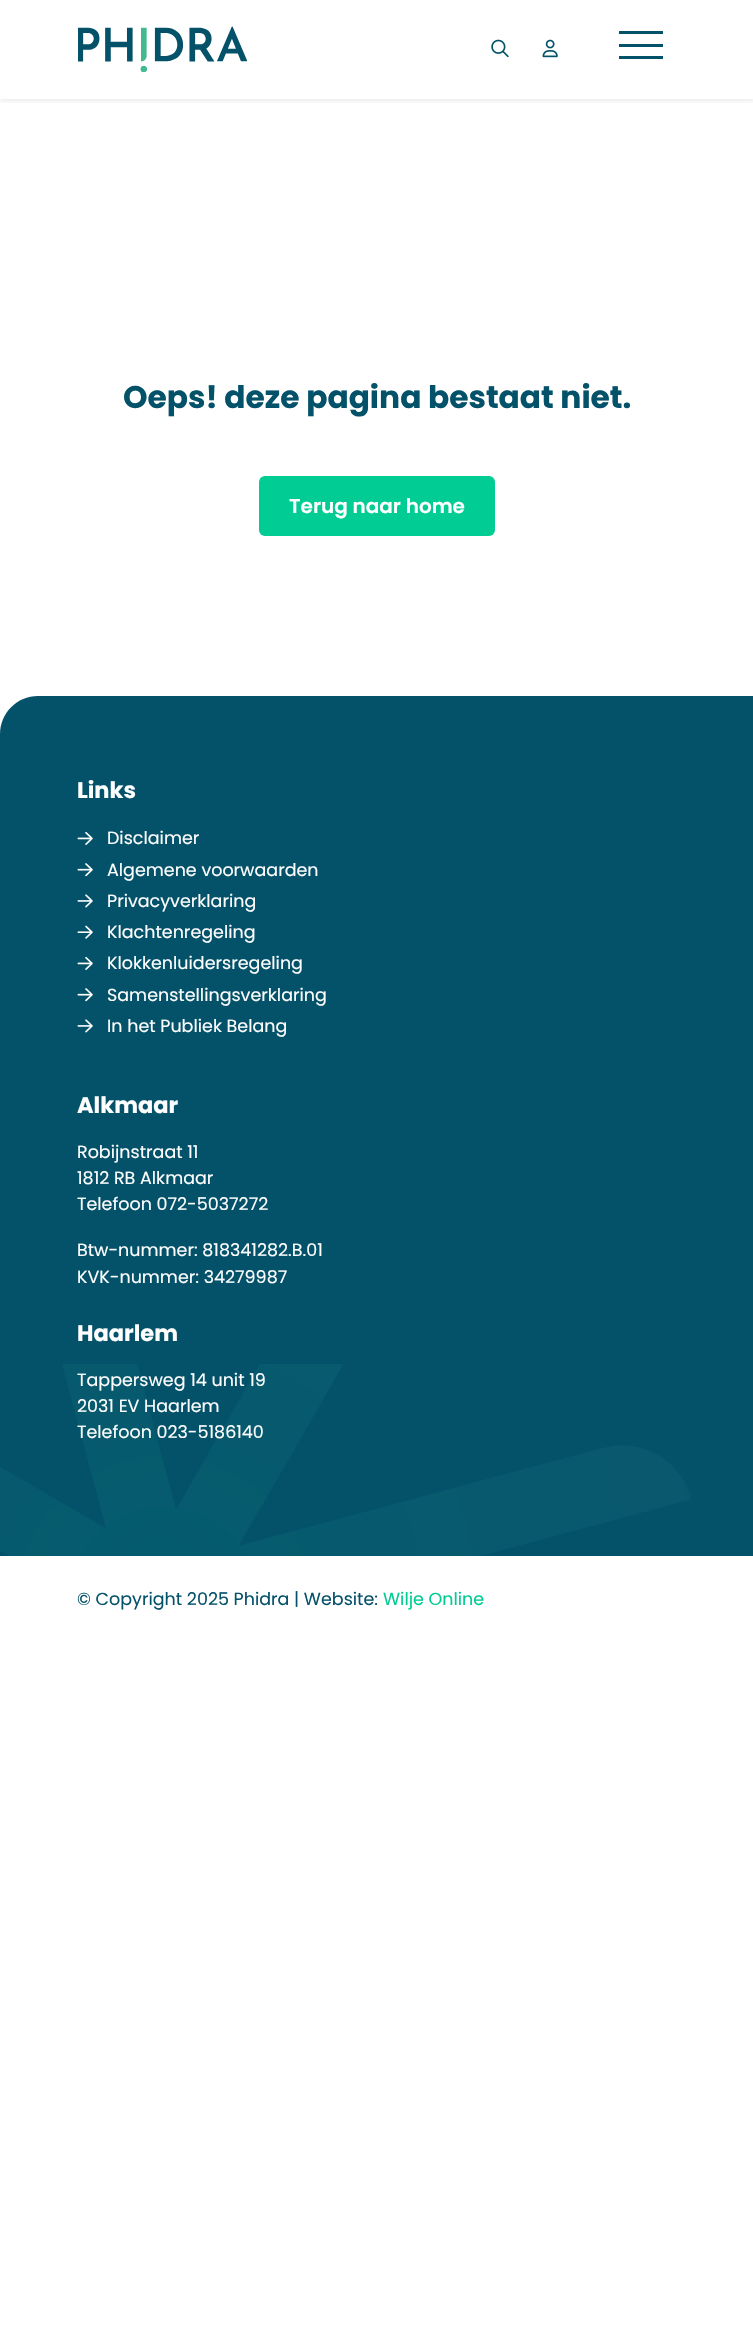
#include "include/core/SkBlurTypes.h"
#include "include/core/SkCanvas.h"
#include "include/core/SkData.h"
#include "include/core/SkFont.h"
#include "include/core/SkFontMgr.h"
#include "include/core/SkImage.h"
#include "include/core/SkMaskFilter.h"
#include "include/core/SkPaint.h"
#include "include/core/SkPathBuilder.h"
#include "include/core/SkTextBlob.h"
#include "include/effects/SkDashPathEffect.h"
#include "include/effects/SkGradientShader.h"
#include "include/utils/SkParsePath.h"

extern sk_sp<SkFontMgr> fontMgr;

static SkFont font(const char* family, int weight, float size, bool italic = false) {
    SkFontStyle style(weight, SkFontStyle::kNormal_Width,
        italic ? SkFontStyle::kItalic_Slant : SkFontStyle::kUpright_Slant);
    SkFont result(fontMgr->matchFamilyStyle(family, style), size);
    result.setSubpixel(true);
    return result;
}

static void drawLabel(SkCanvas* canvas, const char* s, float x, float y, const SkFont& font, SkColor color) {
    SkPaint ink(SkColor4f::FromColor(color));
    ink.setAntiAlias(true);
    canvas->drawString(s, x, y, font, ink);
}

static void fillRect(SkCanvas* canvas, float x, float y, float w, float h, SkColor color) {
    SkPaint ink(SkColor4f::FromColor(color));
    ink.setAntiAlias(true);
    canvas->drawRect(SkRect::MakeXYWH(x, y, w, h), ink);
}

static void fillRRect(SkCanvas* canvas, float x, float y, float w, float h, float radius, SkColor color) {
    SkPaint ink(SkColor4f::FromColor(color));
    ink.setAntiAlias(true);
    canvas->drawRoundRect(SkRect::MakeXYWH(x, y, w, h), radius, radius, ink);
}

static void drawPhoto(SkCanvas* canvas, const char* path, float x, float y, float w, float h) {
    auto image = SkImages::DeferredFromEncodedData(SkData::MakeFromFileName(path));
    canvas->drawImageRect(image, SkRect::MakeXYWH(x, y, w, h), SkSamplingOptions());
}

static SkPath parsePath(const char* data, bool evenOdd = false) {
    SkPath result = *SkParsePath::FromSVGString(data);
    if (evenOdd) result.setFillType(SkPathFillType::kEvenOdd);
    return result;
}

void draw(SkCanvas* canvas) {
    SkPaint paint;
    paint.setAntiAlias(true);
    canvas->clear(0xFFFFFFFF);
    canvas->save();
    canvas->clipRect(SkRect::MakeXYWH(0, 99, 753, 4));
    paint.setColor(0x14000000);
    paint.setMaskFilter(SkMaskFilter::MakeBlur(kNormal_SkBlurStyle, 2.5f));
    canvas->drawRect(SkRect::MakeXYWH(0, 3, 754, 98), paint);
    paint.setMaskFilter(nullptr);
    canvas->restore();
    drawPhoto(canvas, "assets/img1.png", 78, 26, 170, 47);
    drawPhoto(canvas, "assets/img2.png", 491, 39, 18, 19);
    drawPhoto(canvas, "assets/img3.png", 542, 39, 16, 19);
    fillRect(canvas, 619, 31, 44, 3, 0xFF04526A);
    fillRect(canvas, 619, 44, 44, 3, 0xFF04526A);
    fillRect(canvas, 619, 56, 44, 3, 0xFF04526A);
    SkFont font1 = font("Poppins", 700, 31.25f);
    drawLabel(canvas, "Oeps! deze pagina bestaat niet.", 123, 408, font1, 0xFF04526A);
    fillRRect(canvas, 259, 476, 236, 60, 6, 0xFF00CC93);
    SkFont font2 = font("Poppins", 600, 20);
    drawLabel(canvas, "Terug naar home", 289, 513, font2, 0xFFFFFFFF);
    paint.setColor(0xFF04526A);
    canvas->drawPath(parsePath("M38 696H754V1556H0V734C0 713 17 696 38 696Z"), paint);
    drawPhoto(canvas, "assets/img4.png", 0, 1364, 691, 192);
    SkFont font3 = font("Poppins", 700, 22.5f);
    drawLabel(canvas, "Links", 77, 798, font3, 0xFFFFFFFF);
    drawPhoto(canvas, "assets/img5.png", 77, 831, 16, 14);
    SkFont font4 = font("Poppins", 400, 17.5f);
    drawLabel(canvas, "Disclaimer", 107, 844, font4, 0xFFFFFFFF);
    drawPhoto(canvas, "assets/img6.png", 77, 863, 16, 14);
    drawLabel(canvas, "Algemene voorwaarden", 107, 876, font4, 0xFFFFFFFF);
    drawPhoto(canvas, "assets/img7.png", 77, 894, 16, 14);
    drawLabel(canvas, "Privacyverklaring", 107, 907, font4, 0xFFFFFFFF);
    drawPhoto(canvas, "assets/img8.png", 77, 925, 16, 14);
    drawLabel(canvas, "Klachtenregeling", 107, 938, font4, 0xFFFFFFFF);
    drawPhoto(canvas, "assets/img5.png", 77, 956, 16, 14);
    drawLabel(canvas, "Klokkenluidersregeling", 107, 969, font4, 0xFFFFFFFF);
    drawPhoto(canvas, "assets/img6.png", 77, 988, 16, 14);
    drawLabel(canvas, "Samenstellingsverklaring", 107, 1001, font4, 0xFFFFFFFF);
    drawPhoto(canvas, "assets/img7.png", 77, 1019, 16, 14);
    drawLabel(canvas, "In het Publiek Belang", 107, 1032, font4, 0xFFFFFFFF);
    drawLabel(canvas, "Alkmaar", 77, 1113, font3, 0xFFFFFFFF);
    drawLabel(canvas, "Robijnstraat 11", 77, 1158, font4, 0xFFFFFFFF);
    drawLabel(canvas, "1812 RB Alkmaar", 77, 1184, font4, 0xFFFFFFFF);
    drawLabel(canvas, "Telefoon 072-5037272", 77, 1210, font4, 0xFFFFFFFF);
    drawLabel(canvas, "Btw-nummer: 818341282.B.01", 77, 1256, font4, 0xFFFFFFFF);
    drawLabel(canvas, "KVK-nummer: 34279987", 77, 1283, font4, 0xFFFFFFFF);
    drawLabel(canvas, "Haarlem", 77, 1341, font3, 0xFFFFFFFF);
    drawLabel(canvas, "Tappersweg 14 unit 19", 77, 1386, font4, 0xFFFFFFFF);
    drawLabel(canvas, "2031 EV Haarlem", 77, 1412, font4, 0xFFFFFFFF);
    drawLabel(canvas, "Telefoon 023-5186140", 77, 1438, font4, 0xFFFFFFFF);
    drawLabel(canvas, "© Copyright 2025 Phidra | Website:", 77, 1605, font4, 0xFF04526A);
    drawLabel(canvas, "Wilje Online", 383, 1605, font4, 0xFF00CC93);
}
